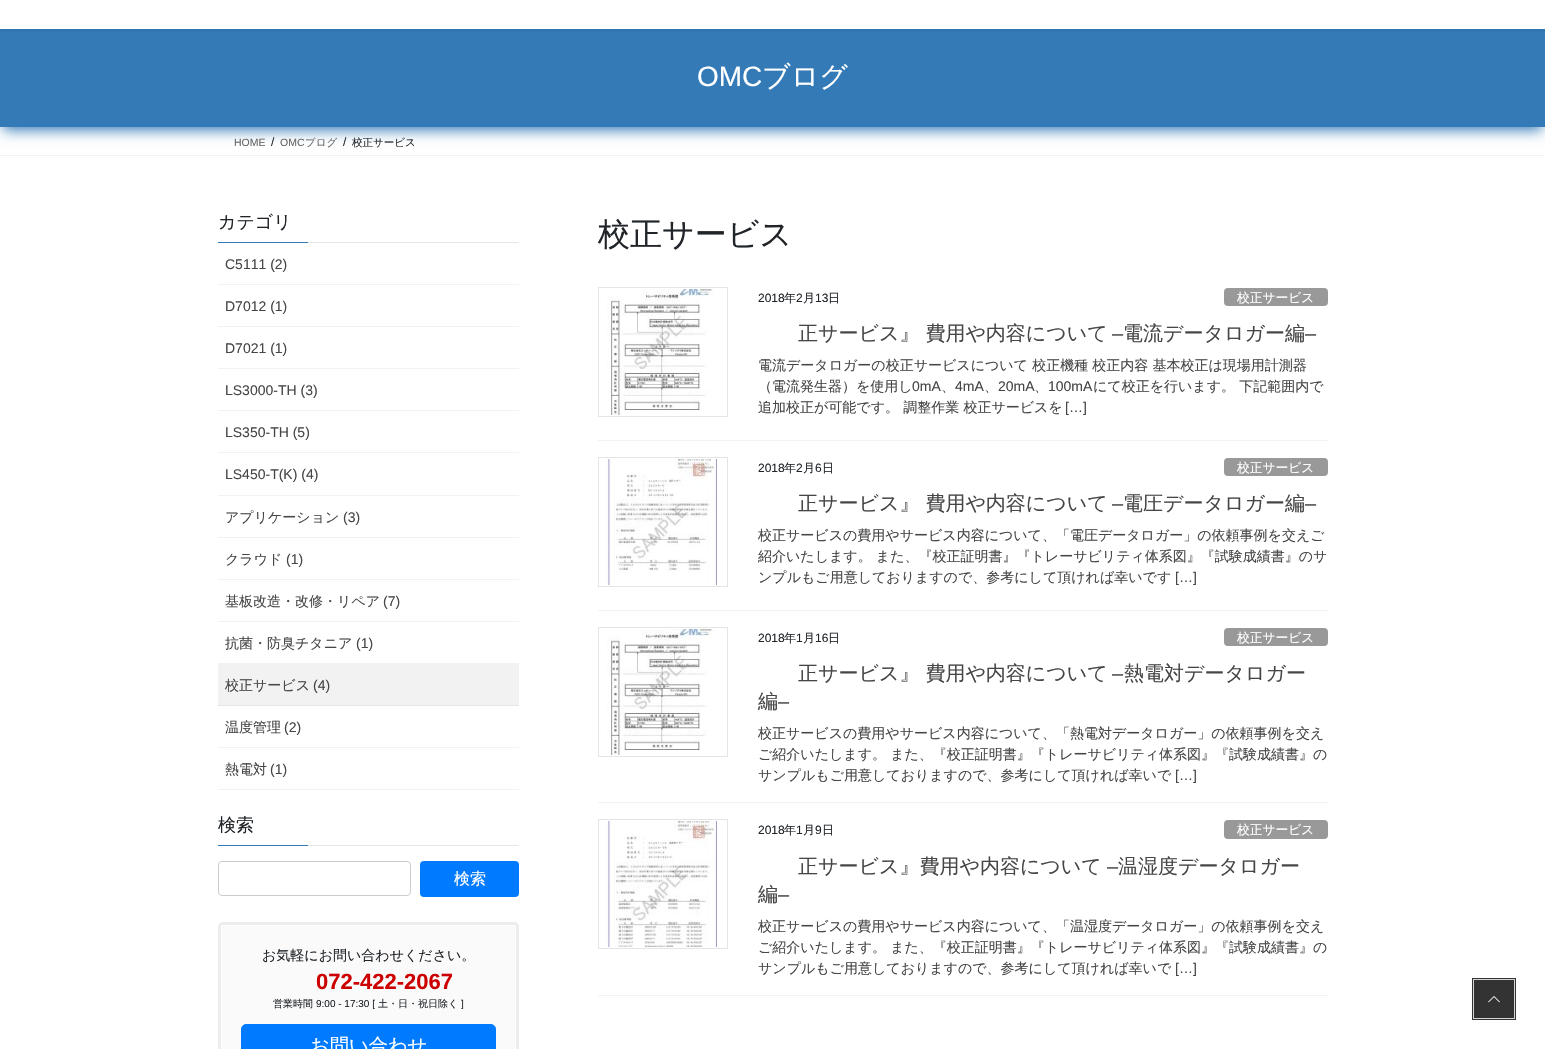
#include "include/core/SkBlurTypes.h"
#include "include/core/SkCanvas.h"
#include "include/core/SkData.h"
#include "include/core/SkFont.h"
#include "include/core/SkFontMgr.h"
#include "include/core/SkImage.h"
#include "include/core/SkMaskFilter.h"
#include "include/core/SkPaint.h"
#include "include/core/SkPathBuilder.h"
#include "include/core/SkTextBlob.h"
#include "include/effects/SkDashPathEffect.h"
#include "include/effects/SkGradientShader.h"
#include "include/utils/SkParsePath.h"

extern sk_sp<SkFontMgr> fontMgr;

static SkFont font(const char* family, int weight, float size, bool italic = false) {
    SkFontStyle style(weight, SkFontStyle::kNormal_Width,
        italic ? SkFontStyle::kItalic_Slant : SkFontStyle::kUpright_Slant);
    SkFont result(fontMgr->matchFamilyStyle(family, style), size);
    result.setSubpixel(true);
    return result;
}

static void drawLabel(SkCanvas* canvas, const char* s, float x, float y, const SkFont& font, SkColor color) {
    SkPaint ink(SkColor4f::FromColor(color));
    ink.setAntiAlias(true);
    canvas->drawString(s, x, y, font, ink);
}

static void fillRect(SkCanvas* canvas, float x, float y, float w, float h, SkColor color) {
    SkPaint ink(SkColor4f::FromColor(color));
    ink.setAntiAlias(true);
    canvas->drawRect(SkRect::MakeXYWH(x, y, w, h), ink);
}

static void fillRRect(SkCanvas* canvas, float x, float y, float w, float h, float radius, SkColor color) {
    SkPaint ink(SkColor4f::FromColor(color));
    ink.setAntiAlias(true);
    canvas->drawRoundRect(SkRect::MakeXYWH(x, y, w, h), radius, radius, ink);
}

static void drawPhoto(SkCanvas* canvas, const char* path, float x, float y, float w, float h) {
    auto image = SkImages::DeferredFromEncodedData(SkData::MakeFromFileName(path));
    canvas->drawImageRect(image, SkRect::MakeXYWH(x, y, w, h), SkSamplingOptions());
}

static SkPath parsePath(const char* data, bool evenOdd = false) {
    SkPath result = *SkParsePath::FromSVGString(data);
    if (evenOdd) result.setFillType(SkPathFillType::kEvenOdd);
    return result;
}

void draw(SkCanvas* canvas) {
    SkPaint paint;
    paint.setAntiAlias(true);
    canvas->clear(0xFFFFFFFF);
    paint.setColor(0xFF337AB7);
    paint.setMaskFilter(SkMaskFilter::MakeBlur(kNormal_SkBlurStyle, 6.5f));
    canvas->drawRect(SkRect::MakeXYWH(3, 38, 1539, 92), paint);
    paint.setMaskFilter(nullptr);
    fillRect(canvas, 0, 29, 1545, 98, 0xFF337AB7);
    paint.setColor(0x1A000000);
    paint.setMaskFilter(SkMaskFilter::MakeBlur(kNormal_SkBlurStyle, 1.5f));
    canvas->drawRect(SkRect::MakeXYWH(0, -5, 1545, 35), paint);
    paint.setMaskFilter(nullptr);
    fillRect(canvas, 0, 0, 1545, 29, 0xFFFFFFFF);
    SkFont font1 = font("Liberation Sans", 400, 28);
    drawLabel(canvas, "OMC", 697, 86, font1, 0xFFFFFFFF);
    SkFont font2 = font("WenQuanYi Zen Hei", 500, 28);
    drawLabel(canvas, "ブログ", 762, 86, font2, 0xFFFFFFFF);
    fillRect(canvas, 0, 155, 1545, 1, 0xFFF2F2F2);
    SkFont font3 = font("Liberation Sans", 400, 10.5f);
    drawLabel(canvas, "HOME", 234, 146, font3, 0xFF666666);
    SkFont font4 = font("Liberation Sans", 400, 12);
    drawLabel(canvas, "/", 271, 146, font4, 0xFF212529);
    drawLabel(canvas, "OMC", 280, 146, font3, 0xFF666666);
    SkFont font5 = font("WenQuanYi Zen Hei", 500, 10.5f);
    drawLabel(canvas, "ブログ", 305, 146, font5, 0xFF666666);
    drawLabel(canvas, "/", 343, 146, font4, 0xFF212529);
    drawLabel(canvas, "校正サービス", 352, 146, font5, 0xFF212529);
    fillRect(canvas, 308, 242, 211, 1, 0xFFE6E6E6);
    SkFont font6 = font("WenQuanYi Zen Hei", 500, 18);
    drawLabel(canvas, "カテゴリ", 218, 228, font6, 0xFF212529);
    fillRect(canvas, 218, 242, 90, 1, 0xFF337AB7);
    fillRect(canvas, 218, 284, 301, 1, 0xFFF2F2F2);
    SkFont font7 = font("Liberation Sans", 400, 14);
    drawLabel(canvas, "C5111 (2)", 225, 269, font7, 0xFF464646);
    fillRect(canvas, 218, 326, 301, 1, 0xFFF2F2F2);
    drawLabel(canvas, "D7012 (1)", 225, 311, font7, 0xFF464646);
    fillRect(canvas, 218, 368, 301, 1, 0xFFF2F2F2);
    drawLabel(canvas, "D7021 (1)", 225, 353, font7, 0xFF464646);
    fillRect(canvas, 218, 410, 301, 1, 0xFFF2F2F2);
    drawLabel(canvas, "LS3000-TH (3)", 225, 395, font7, 0xFF464646);
    fillRect(canvas, 218, 452, 301, 1, 0xFFF2F2F2);
    drawLabel(canvas, "LS350-TH (5)", 225, 437, font7, 0xFF464646);
    fillRect(canvas, 218, 495, 301, 1, 0xFFF2F2F2);
    drawLabel(canvas, "LS450-T(K) (4)", 225, 479, font7, 0xFF464646);
    fillRect(canvas, 218, 537, 301, 1, 0xFFF2F2F2);
    SkFont font8 = font("WenQuanYi Zen Hei", 500, 14);
    drawLabel(canvas, "アプリケーション", 225, 522, font8, 0xFF464646);
    drawLabel(canvas, "(3)", 343, 522, font7, 0xFF464646);
    fillRect(canvas, 218, 579, 301, 1, 0xFFF2F2F2);
    drawLabel(canvas, "クラウド", 225, 564, font8, 0xFF464646);
    drawLabel(canvas, "(1)", 286, 564, font7, 0xFF464646);
    fillRect(canvas, 218, 621, 301, 1, 0xFFF2F2F2);
    drawLabel(canvas, "基板改造・改修・リペア", 225, 606, font8, 0xFF464646);
    drawLabel(canvas, "(7)", 383, 606, font7, 0xFF464646);
    fillRect(canvas, 218, 663, 301, 42, 0xFFF2F2F2);
    drawLabel(canvas, "抗菌・防臭チタニア", 225, 648, font8, 0xFF464646);
    drawLabel(canvas, "(1)", 356, 648, font7, 0xFF464646);
    fillRect(canvas, 218, 705, 301, 1, 0xFFE6E6E6);
    drawLabel(canvas, "校正サービス", 225, 690, font8, 0xFF464646);
    drawLabel(canvas, "(4)", 313, 690, font7, 0xFF464646);
    fillRect(canvas, 218, 747, 301, 1, 0xFFF2F2F2);
    drawLabel(canvas, "温度管理", 225, 732, font8, 0xFF464646);
    drawLabel(canvas, "(2)", 284, 732, font7, 0xFF464646);
    fillRect(canvas, 218, 789, 301, 1, 0xFFF2F2F2);
    drawLabel(canvas, "熱電対", 225, 774, font8, 0xFF464646);
    drawLabel(canvas, "(1)", 270, 774, font7, 0xFF464646);
    fillRect(canvas, 308, 845, 211, 1, 0xFFE6E6E6);
    drawLabel(canvas, "検索", 218, 831, font6, 0xFF212529);
    fillRect(canvas, 218, 845, 90, 1, 0xFF337AB7);
    paint.setStroke(true);
    paint.setStrokeWidth(1);
    paint.setColor(0xFFCCCCCC);
    canvas->drawRoundRect(SkRect::MakeXYWH(218.5f, 861.5f, 192, 34), 3.5f, 3.5f, paint);
    fillRRect(canvas, 420, 861, 99, 36, 4, 0xFF007BFF);
    SkFont font9 = font("WenQuanYi Zen Hei", 500, 16);
    drawLabel(canvas, "検索", 454, 884, font9, 0xFFFFFFFF);
    paint.setStrokeWidth(3);
    paint.setColor(0xFFEDEDED);
    canvas->drawRoundRect(SkRect::MakeXYWH(219.5f, 923.5f, 298, 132), 3.5f, 3.5f, paint);
    fillRRect(canvas, 221, 925, 295, 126, 2, 0xFFFAFAFA);
    paint.setStroke(false);
    paint.setColor(0xFFFEFEFE);
    canvas->drawPath(parsePath("M223 925C222 925 221 926 221 927V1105C221 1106 222 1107 223 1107H514C515 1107 516 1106 516 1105V927C516 926 515 925 514 925ZM222 926V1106H515V926Z", true), paint);
    drawLabel(canvas, "お気軽にお問い合わせください。", 262, 960, font8, 0xFF212529);
    SkFont font10 = font("Liberation Sans", 700, 22);
    drawLabel(canvas, "072-422-2067", 316, 989, font10, 0xFFCC0000);
    SkFont font11 = font("WenQuanYi Zen Hei", 500, 10);
    drawLabel(canvas, "営業時間", 273, 1007, font11, 0xFF212529);
    SkFont font12 = font("Liberation Sans", 400, 10);
    drawLabel(canvas, "9:00 - 17:30 [", 316, 1007, font12, 0xFF212529);
    drawLabel(canvas, "土・日・祝日除く", 378, 1007, font11, 0xFF212529);
    drawLabel(canvas, "]", 461, 1007, font12, 0xFF212529);
    paint.setColor(0xFF007BFF);
    canvas->drawRoundRect(SkRect::MakeXYWH(241.5f, 1024.5f, 254, 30), 4.5f, 4.5f, paint);
    paint.setStroke(true);
    paint.setStrokeWidth(1);
    canvas->drawRoundRect(SkRect::MakeXYWH(241.5f, 1024.5f, 254, 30), 4.5f, 4.5f, paint);
    SkFont font13 = font("WenQuanYi Zen Hei", 500, 19.25f);
    drawLabel(canvas, "お問い合わせ", 310, 1052, font13, 0xFFFFFFFF);
    SkFont font14 = font("WenQuanYi Zen Hei", 500, 32);
    drawLabel(canvas, "校正サービス", 598, 245, font14, 0xFF212529);
    fillRect(canvas, 598, 440, 730, 1, 0xFFF2F2F2);
    paint.setColor(0xFFE5E5E5);
    canvas->drawRect(SkRect::MakeXYWH(598.5f, 287.5f, 129, 129), paint);
    drawPhoto(canvas, "assets/img1.png", 607, 289, 107, 126);
    drawLabel(canvas, "2018", 758, 302, font4, 0xFF212529);
    SkFont font15 = font("WenQuanYi Zen Hei", 500, 12);
    drawLabel(canvas, "年", 784, 302, font15, 0xFF212529);
    drawLabel(canvas, "2", 796, 302, font4, 0xFF212529);
    drawLabel(canvas, "月", 803, 302, font15, 0xFF212529);
    drawLabel(canvas, "13", 815, 302, font4, 0xFF212529);
    drawLabel(canvas, "日", 828, 302, font15, 0xFF212529);
    fillRRect(canvas, 1224, 288, 104, 18, 4, 0xFF999999);
    SkFont font16 = font("WenQuanYi Zen Hei", 500, 12.75f);
    drawLabel(canvas, "校正サービス", 1237, 302, font16, 0xFFFFFFFF);
    SkFont font17 = font("Noto Sans", 400, 20);
    drawLabel(canvas, "『校", 758, 340, font17, 0xFF464646);
    SkFont font18 = font("WenQuanYi Zen Hei", 500, 20);
    drawLabel(canvas, "正サービス』 費用や内容について", 798, 340, font18, 0xFF464646);
    SkFont font19 = font("Liberation Sans", 400, 20);
    drawLabel(canvas, "–", 1112, 340, font19, 0xFF464646);
    drawLabel(canvas, "電流データロガー編", 1123, 340, font18, 0xFF464646);
    drawLabel(canvas, "–", 1305, 340, font19, 0xFF464646);
    drawLabel(canvas, "電流データロガーの校正サービスについて 校正機種 校正内容 基本校正は現場用計測器", 758, 370, font8, 0xFF464646);
    drawLabel(canvas, "（電流発生器）を使用し", 758, 391, font8, 0xFF464646);
    drawLabel(canvas, "0mA", 912, 391, font7, 0xFF464646);
    drawLabel(canvas, "、", 941, 391, font8, 0xFF464646);
    drawLabel(canvas, "4mA", 955, 391, font7, 0xFF464646);
    drawLabel(canvas, "、", 984, 391, font8, 0xFF464646);
    drawLabel(canvas, "20mA", 998, 391, font7, 0xFF464646);
    drawLabel(canvas, "、", 1034, 391, font8, 0xFF464646);
    drawLabel(canvas, "100mA", 1048, 391, font7, 0xFF464646);
    drawLabel(canvas, "にて校正を行います。 下記範囲内で", 1093, 391, font8, 0xFF464646);
    drawLabel(canvas, "追加校正が可能です。 調整作業 校正サービスを", 758, 412, font8, 0xFF464646);
    drawLabel(canvas, "[…]", 1065, 412, font7, 0xFF464646);
    fillRect(canvas, 598, 610, 730, 1, 0xFFF2F2F2);
    canvas->drawRect(SkRect::MakeXYWH(598.5f, 457.5f, 129, 129), paint);
    drawPhoto(canvas, "assets/img2.png", 605, 459, 112, 126);
    drawLabel(canvas, "2018", 758, 472, font4, 0xFF212529);
    drawLabel(canvas, "年", 784, 472, font15, 0xFF212529);
    drawLabel(canvas, "2", 796, 472, font4, 0xFF212529);
    drawLabel(canvas, "月", 803, 472, font15, 0xFF212529);
    drawLabel(canvas, "6", 815, 472, font4, 0xFF212529);
    drawLabel(canvas, "日", 822, 472, font15, 0xFF212529);
    fillRRect(canvas, 1224, 458, 104, 18, 4, 0xFF999999);
    drawLabel(canvas, "校正サービス", 1237, 472, font16, 0xFFFFFFFF);
    drawLabel(canvas, "『校", 758, 510, font17, 0xFF464646);
    drawLabel(canvas, "正サービス』 費用や内容について", 798, 510, font18, 0xFF464646);
    drawLabel(canvas, "–", 1112, 510, font19, 0xFF464646);
    drawLabel(canvas, "電圧データロガー編", 1123, 510, font18, 0xFF464646);
    drawLabel(canvas, "–", 1305, 510, font19, 0xFF464646);
    drawLabel(canvas, "校正サービスの費用やサービス内容について、「電圧データロガー」の依頼事例を交えご", 758, 540, font8, 0xFF464646);
    canvas->save();
    canvas->clipRect(SkRect::MakeXYWH(758, 525, 570, 63));
    drawLabel(canvas, "紹介いたします。 また、『校正証明書』『トレーサビリティ体系図』『試験成績書』のサ", 758, 561, font8, 0xFF464646);
    canvas->restore();
    drawLabel(canvas, "ンプルもご用意しておりますので、参考にして頂ければ幸いです", 758, 582, font8, 0xFF464646);
    drawLabel(canvas, "[…]", 1175, 582, font7, 0xFF464646);
    fillRect(canvas, 598, 802, 730, 1, 0xFFF2F2F2);
    canvas->drawRect(SkRect::MakeXYWH(598.5f, 627.5f, 129, 129), paint);
    drawPhoto(canvas, "assets/img1.png", 607, 629, 107, 126);
    drawLabel(canvas, "2018", 758, 642, font4, 0xFF212529);
    drawLabel(canvas, "年", 784, 642, font15, 0xFF212529);
    drawLabel(canvas, "1", 796, 642, font4, 0xFF212529);
    drawLabel(canvas, "月", 803, 642, font15, 0xFF212529);
    drawLabel(canvas, "16", 815, 642, font4, 0xFF212529);
    drawLabel(canvas, "日", 828, 642, font15, 0xFF212529);
    fillRRect(canvas, 1224, 628, 104, 18, 4, 0xFF999999);
    drawLabel(canvas, "校正サービス", 1237, 642, font16, 0xFFFFFFFF);
    drawLabel(canvas, "『校", 758, 680, font17, 0xFF464646);
    drawLabel(canvas, "正サービス』 費用や内容について", 798, 680, font18, 0xFF464646);
    drawLabel(canvas, "–", 1112, 680, font19, 0xFF464646);
    drawLabel(canvas, "熱電対データロガー", 1124, 680, font18, 0xFF464646);
    drawLabel(canvas, "編", 758, 708, font18, 0xFF464646);
    drawLabel(canvas, "–", 778, 708, font19, 0xFF464646);
    drawLabel(canvas, "校正サービスの費用やサービス内容について、「熱電対データロガー」の依頼事例を交え", 758, 738, font8, 0xFF464646);
    drawLabel(canvas, "ご紹介いたします。 また、『校正証明書』『トレーサビリティ体系図』『試験成績書』の", 758, 759, font8, 0xFF464646);
    drawLabel(canvas, "サンプルもご用意しておりますので、参考にして頂ければ幸いで", 758, 780, font8, 0xFF464646);
    drawLabel(canvas, "[…]", 1175, 780, font7, 0xFF464646);
    fillRect(canvas, 598, 995, 730, 1, 0xFFF2F2F2);
    canvas->drawRect(SkRect::MakeXYWH(598.5f, 819.5f, 129, 129), paint);
    drawPhoto(canvas, "assets/img3.png", 605, 821, 112, 126);
    drawLabel(canvas, "2018", 758, 834, font4, 0xFF212529);
    drawLabel(canvas, "年", 784, 834, font15, 0xFF212529);
    drawLabel(canvas, "1", 796, 834, font4, 0xFF212529);
    drawLabel(canvas, "月", 803, 834, font15, 0xFF212529);
    drawLabel(canvas, "9", 815, 834, font4, 0xFF212529);
    drawLabel(canvas, "日", 822, 834, font15, 0xFF212529);
    fillRRect(canvas, 1224, 820, 104, 19, 4, 0xFF999999);
    drawLabel(canvas, "校正サービス", 1237, 834, font16, 0xFFFFFFFF);
    drawLabel(canvas, "『校", 758, 873, font17, 0xFF464646);
    drawLabel(canvas, "正サービス』費用や内容について", 798, 873, font18, 0xFF464646);
    drawLabel(canvas, "–", 1107, 873, font19, 0xFF464646);
    drawLabel(canvas, "温湿度データロガー", 1118, 873, font18, 0xFF464646);
    drawLabel(canvas, "編", 758, 901, font18, 0xFF464646);
    drawLabel(canvas, "–", 778, 901, font19, 0xFF464646);
    drawLabel(canvas, "校正サービスの費用やサービス内容について、「温湿度データロガー」の依頼事例を交え", 758, 931, font8, 0xFF464646);
    drawLabel(canvas, "ご紹介いたします。 また、『校正証明書』『トレーサビリティ体系図』『試験成績書』の", 758, 952, font8, 0xFF464646);
    drawLabel(canvas, "サンプルもご用意しておりますので、参考にして頂ければ幸いで", 758, 973, font8, 0xFF464646);
    drawLabel(canvas, "[…]", 1175, 973, font7, 0xFF464646);
    paint.setStrokeWidth(2);
    paint.setColor(0xFF333333);
    canvas->drawRect(SkRect::MakeXYWH(1473, 979, 42, 40), paint);
    paint.setStrokeWidth(1);
    paint.setColor(0xFFD6D6D6);
    canvas->drawRect(SkRect::MakeXYWH(1473.5f, 979.5f, 41, 39), paint);
    fillRect(canvas, 1474, 980, 40, 38, 0xFF333333);
    drawPhoto(canvas, "assets/img4.png", 1488, 996, 12, 7);
}
